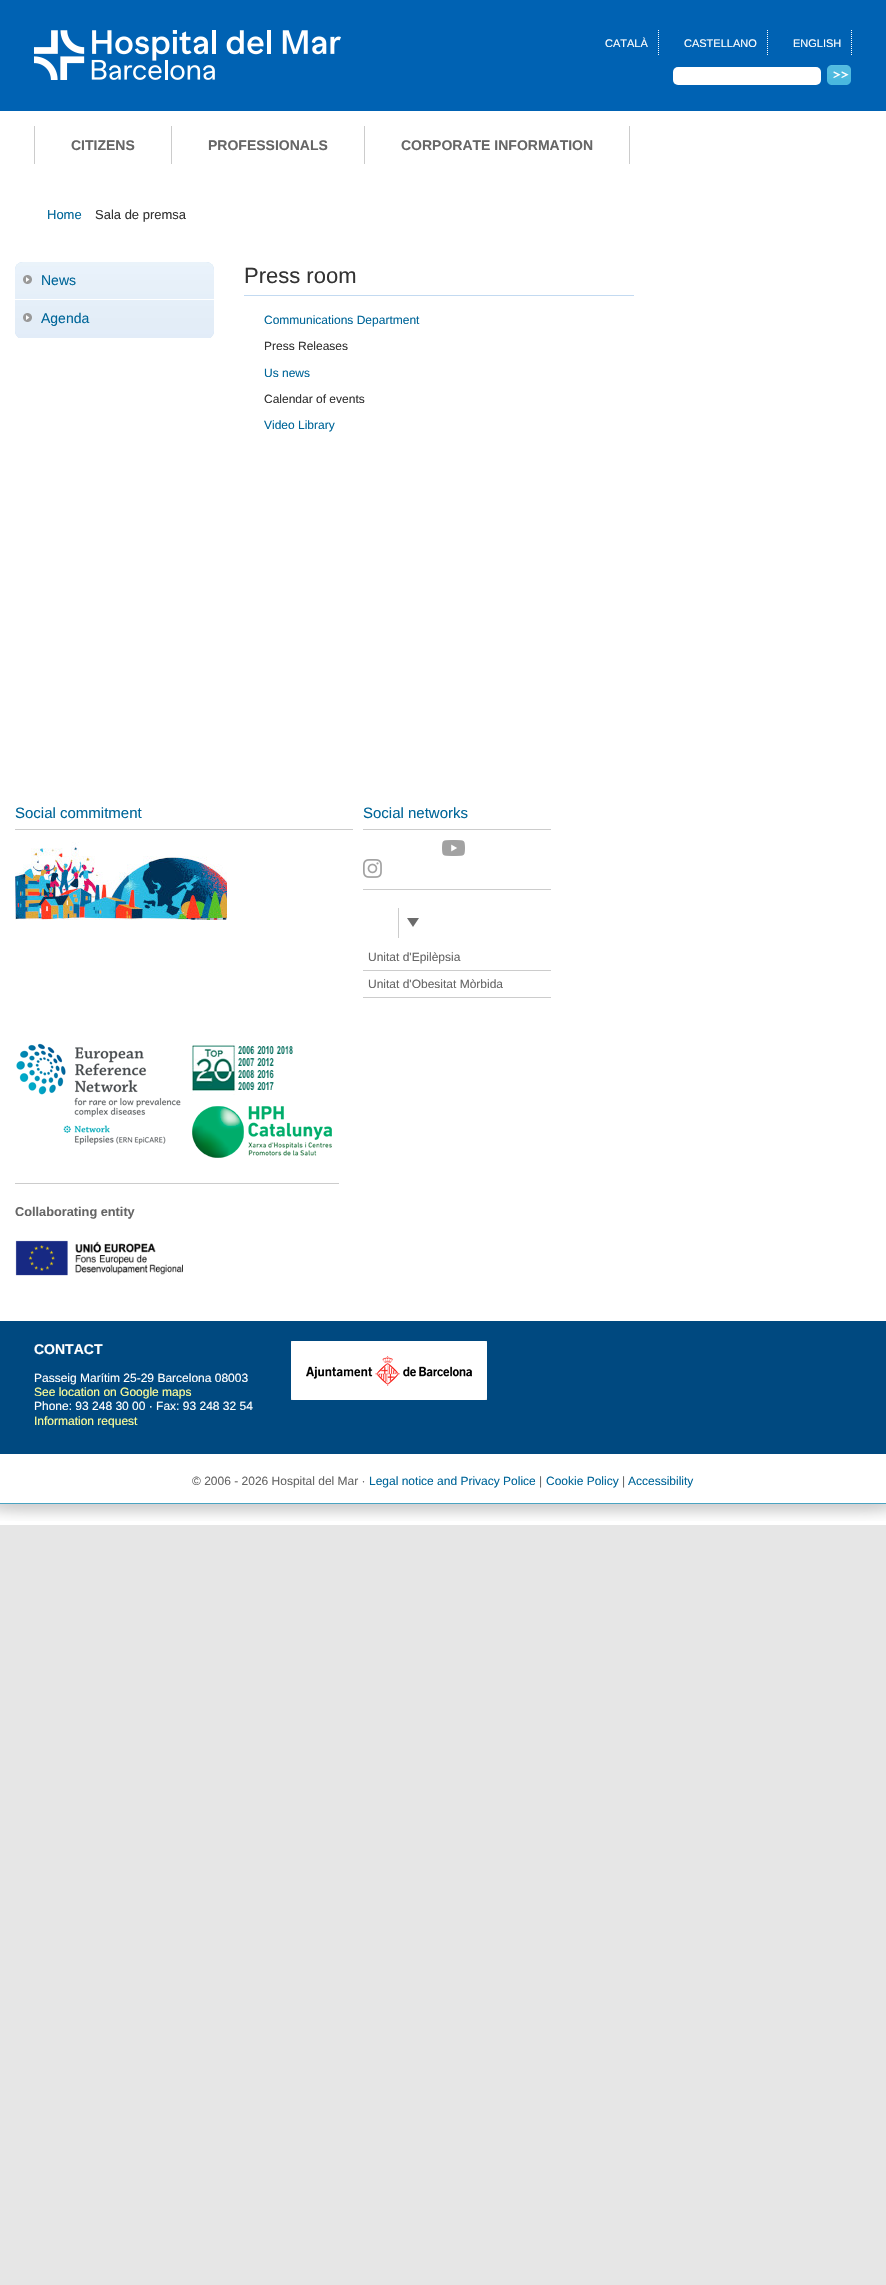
#include "include/core/SkBlurTypes.h"
#include "include/core/SkCanvas.h"
#include "include/core/SkData.h"
#include "include/core/SkFont.h"
#include "include/core/SkFontMgr.h"
#include "include/core/SkImage.h"
#include "include/core/SkMaskFilter.h"
#include "include/core/SkPaint.h"
#include "include/core/SkPathBuilder.h"
#include "include/core/SkTextBlob.h"
#include "include/effects/SkDashPathEffect.h"
#include "include/effects/SkGradientShader.h"
#include "include/utils/SkParsePath.h"

extern sk_sp<SkFontMgr> fontMgr;

static SkFont font(const char* family, int weight, float size, bool italic = false) {
    SkFontStyle style(weight, SkFontStyle::kNormal_Width,
        italic ? SkFontStyle::kItalic_Slant : SkFontStyle::kUpright_Slant);
    SkFont result(fontMgr->matchFamilyStyle(family, style), size);
    result.setSubpixel(true);
    return result;
}

static void drawLabel(SkCanvas* canvas, const char* s, float x, float y, const SkFont& font, SkColor color) {
    SkPaint ink(SkColor4f::FromColor(color));
    ink.setAntiAlias(true);
    canvas->drawString(s, x, y, font, ink);
}

static void fillRect(SkCanvas* canvas, float x, float y, float w, float h, SkColor color) {
    SkPaint ink(SkColor4f::FromColor(color));
    ink.setAntiAlias(true);
    canvas->drawRect(SkRect::MakeXYWH(x, y, w, h), ink);
}

static void fillRRect(SkCanvas* canvas, float x, float y, float w, float h, float radius, SkColor color) {
    SkPaint ink(SkColor4f::FromColor(color));
    ink.setAntiAlias(true);
    canvas->drawRoundRect(SkRect::MakeXYWH(x, y, w, h), radius, radius, ink);
}

static void drawPhoto(SkCanvas* canvas, const char* path, float x, float y, float w, float h) {
    auto image = SkImages::DeferredFromEncodedData(SkData::MakeFromFileName(path));
    canvas->drawImageRect(image, SkRect::MakeXYWH(x, y, w, h), SkSamplingOptions());
}

static SkPath parsePath(const char* data, bool evenOdd = false) {
    SkPath result = *SkParsePath::FromSVGString(data);
    if (evenOdd) result.setFillType(SkPathFillType::kEvenOdd);
    return result;
}

void draw(SkCanvas* canvas) {
    SkPaint paint;
    paint.setAntiAlias(true);
    canvas->clear(0xFFE6E6E6);
    fillRect(canvas, 0, 111, 886, 1210, 0xFFFFFFFF);
    fillRect(canvas, 0, 0, 886, 111, 0xFF0062B3);
    drawPhoto(canvas, "assets/img1.png", 34, 30, 307, 50);
    paint.setStroke(true);
    paint.setStrokeWidth(1);
    paint.setColor(0xFFFFFFFF);
    paint.setPathEffect(SkDashPathEffect::Make({{1, 1}}, 0));
    canvas->drawPath(parsePath("M658.5 30V56"), paint);
    paint.setPathEffect(nullptr);
    SkFont font1 = font("Liberation Sans", 400, 11);
    drawLabel(canvas, "CATALÀ", 605, 47, font1, 0xFFFFFFFF);
    paint.setPathEffect(SkDashPathEffect::Make({{1, 1}}, 0));
    canvas->drawPath(parsePath("M767.5 30V56"), paint);
    paint.setPathEffect(nullptr);
    drawLabel(canvas, "CASTELLANO", 684, 47, font1, 0xFFFFFFFF);
    paint.setPathEffect(SkDashPathEffect::Make({{1, 1}}, 0));
    canvas->drawPath(parsePath("M851.5 30V56"), paint);
    paint.setPathEffect(nullptr);
    drawLabel(canvas, "ENGLISH", 793, 47, font1, 0xFFFFFFFF);
    fillRRect(canvas, 673, 67, 148, 18, 5, 0xFFFFFFFF);
    drawPhoto(canvas, "assets/img2.png", 827, 65, 24, 20);
    fillRect(canvas, 34, 126, 1, 38, 0xFFCCCCCC);
    SkFont font2 = font("Liberation Sans", 700, 14);
    drawLabel(canvas, "CITIZENS", 71, 150, font2, 0xFF666666);
    fillRect(canvas, 171, 126, 1, 38, 0xFFCCCCCC);
    drawLabel(canvas, "PROFESSIONALS", 208, 150, font2, 0xFF666666);
    fillRect(canvas, 629, 126, 1, 38, 0xFFCCCCCC);
    fillRect(canvas, 364, 126, 1, 38, 0xFFCCCCCC);
    drawLabel(canvas, "CORPORATE INFORMATION", 401, 150, font2, 0xFF666666);
    SkFont font3 = font("Liberation Sans", 400, 13);
    drawLabel(canvas, "Home", 47, 219, font3, 0xFF006699);
    drawLabel(canvas, "Sala de premsa", 95, 219, font3, 0xFF333333);
    fillRRect(canvas, 15, 262, 199, 77, 8, 0xFFC3DAF1);
    drawPhoto(canvas, "assets/img3.png", 15, 262, 199, 76);
    drawPhoto(canvas, "assets/img4.png", 23, 275, 9, 9);
    fillRect(canvas, 15, 299, 199, 1, 0xFFFFFFFF);
    SkFont font4 = font("Liberation Sans", 400, 14);
    drawLabel(canvas, "News", 41, 285, font4, 0xFF006699);
    drawPhoto(canvas, "assets/img5.png", 23, 313, 9, 9);
    fillRect(canvas, 15, 338, 199, 1, 0xFFFFFFFF);
    drawLabel(canvas, "Agenda", 41, 323, font4, 0xFF006699);
    fillRect(canvas, 244, 295, 390, 1, 0xFFC3DAF1);
    SkFont font5 = font("Liberation Sans", 400, 22);
    drawLabel(canvas, "Press room", 244, 283, font5, 0xFF333333);
    SkFont font6 = font("Liberation Sans", 400, 12);
    drawLabel(canvas, "Communications Department", 264, 324, font6, 0xFF006699);
    drawLabel(canvas, "Press Releases", 264, 350, font6, 0xFF333333);
    drawLabel(canvas, "Us news", 264, 377, font6, 0xFF006699);
    drawLabel(canvas, "Calendar of events", 264, 403, font6, 0xFF333333);
    drawLabel(canvas, "Video Library", 264, 429, font6, 0xFF006699);
    fillRect(canvas, 15, 829, 338, 1, 0xFFCCCCCC);
    SkFont font7 = font("Liberation Sans", 400, 15);
    drawLabel(canvas, "Social commitment", 15, 818, font7, 0xFF006699);
    drawPhoto(canvas, "assets/img6.png", 15, 842, 212, 78);
    fillRect(canvas, 363, 829, 188, 1, 0xFFCCCCCC);
    drawLabel(canvas, "Social networks", 363, 818, font7, 0xFF006699);
    drawPhoto(canvas, "assets/img7.png", 442, 840, 23, 16);
    drawPhoto(canvas, "assets/img8.png", 363, 859, 19, 19);
    fillRect(canvas, 363, 889, 188, 1, 0xFFCCCCCC);
    drawPhoto(canvas, "assets/img9.png", 407, 918, 12, 9);
    fillRect(canvas, 398, 908, 1, 30, 0xFFCCCCCC);
    fillRect(canvas, 363, 970, 188, 1, 0xFFCCCCCC);
    drawLabel(canvas, "Unitat d'Epilèpsia", 368, 961, font6, 0xFF666666);
    fillRect(canvas, 363, 997, 188, 1, 0xFFCCCCCC);
    drawLabel(canvas, "Unitat d'Obesitat Mòrbida", 368, 988, font6, 0xFF666666);
    drawPhoto(canvas, "assets/img10.png", 16, 1043, 165, 102);
    drawPhoto(canvas, "assets/img11.png", 192, 1043, 101, 52);
    drawPhoto(canvas, "assets/img12.png", 192, 1106, 140, 52);
    fillRect(canvas, 15, 1183, 324, 1, 0xFFCCCCCC);
    SkFont font8 = font("Liberation Sans", 700, 12.75f);
    drawLabel(canvas, "Collaborating entity", 15, 1216, font8, 0xFF666666);
    drawPhoto(canvas, "assets/img13.png", 15, 1240, 168, 36);
    fillRect(canvas, 0, 1321, 886, 133, 0xFF004980);
    drawLabel(canvas, "CONTACT", 34, 1354, font2, 0xFFFFFFFF);
    drawLabel(canvas, "Passeig Marítim 25-29 Barcelona 08003", 34, 1382, font6, 0xFFFFFFFF);
    drawLabel(canvas, "See location on Google maps", 34, 1396, font6, 0xFFFFFF99);
    drawLabel(canvas, "Phone: 93 248 30 00 · Fax: 93 248 32 54", 34, 1410, font6, 0xFFFFFFFF);
    drawLabel(canvas, "Information request", 34, 1425, font6, 0xFFFFFF99);
    drawPhoto(canvas, "assets/img14.png", 291, 1341, 196, 59);
    fillRect(canvas, 0, 1454, 886, 71, 0xFFFFFFFF);
    drawPhoto(canvas, "assets/img15.png", 0, 1503, 886, 18);
    drawLabel(canvas, "© 2006 - 2026 Hospital del Mar ·", 192, 1485, font6, 0xFF666666);
    drawLabel(canvas, "Legal notice and Privacy Police", 369, 1485, font6, 0xFF006699);
    drawLabel(canvas, "|", 539, 1485, font6, 0xFF666666);
    drawLabel(canvas, "Cookie Policy", 546, 1485, font6, 0xFF006699);
    drawLabel(canvas, "|", 622, 1485, font6, 0xFF666666);
    drawLabel(canvas, "Accessibility", 628, 1485, font6, 0xFF006699);
}
